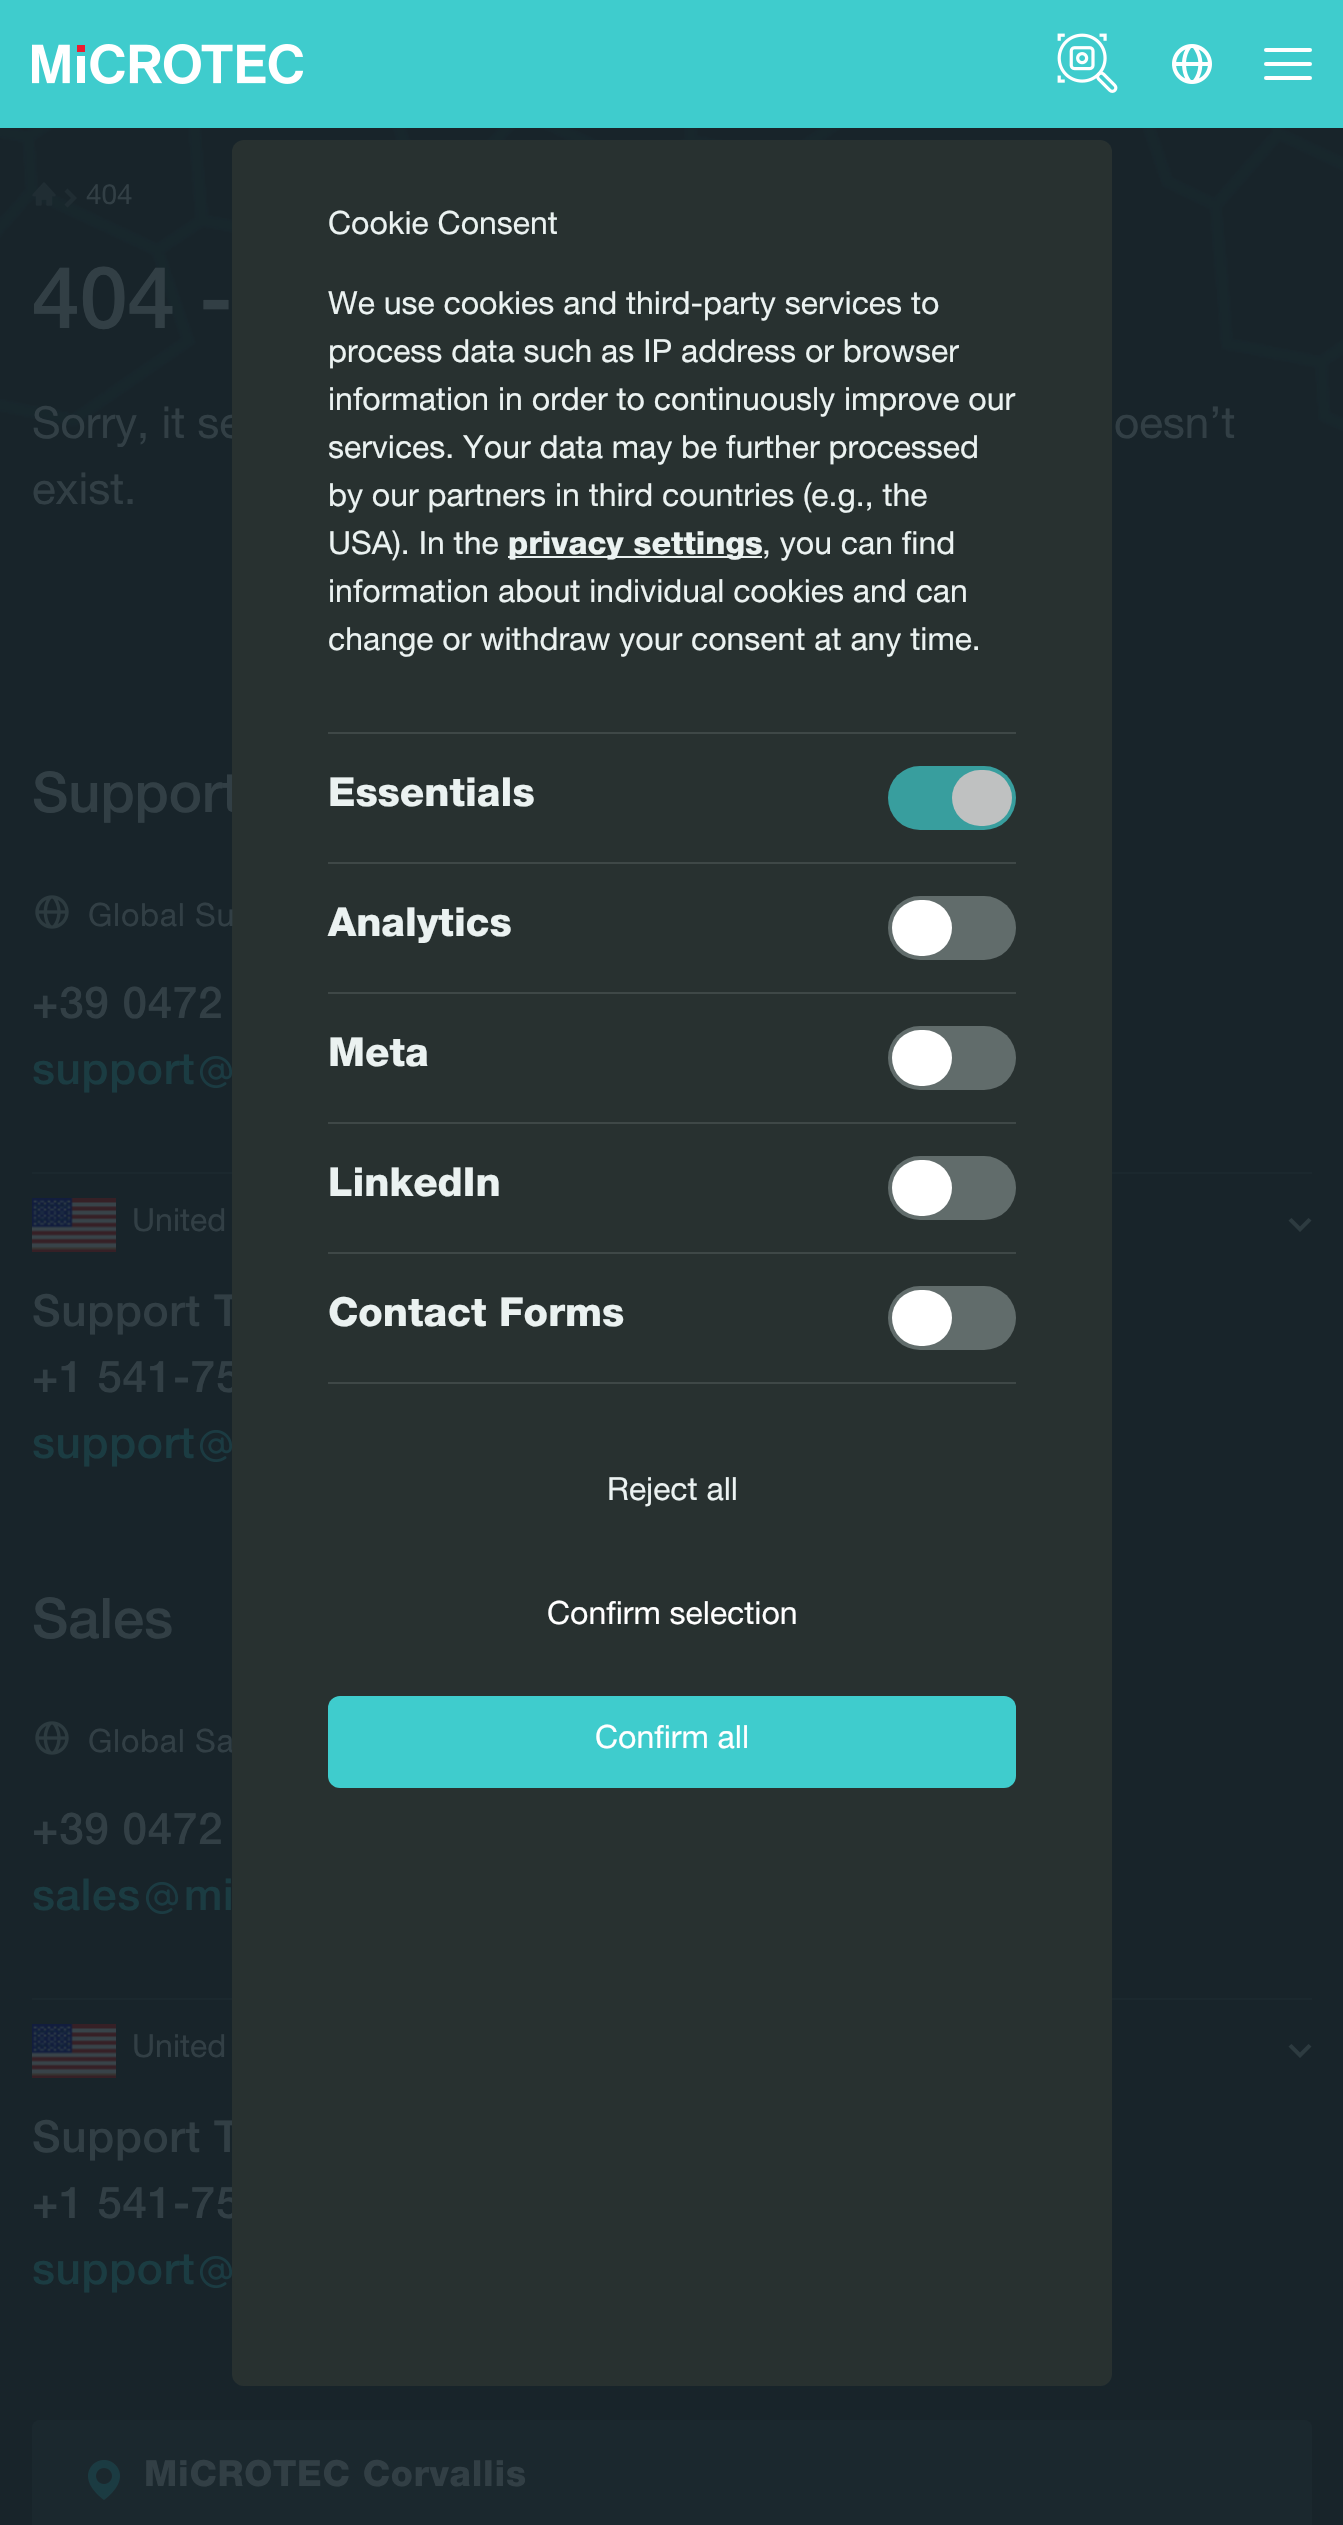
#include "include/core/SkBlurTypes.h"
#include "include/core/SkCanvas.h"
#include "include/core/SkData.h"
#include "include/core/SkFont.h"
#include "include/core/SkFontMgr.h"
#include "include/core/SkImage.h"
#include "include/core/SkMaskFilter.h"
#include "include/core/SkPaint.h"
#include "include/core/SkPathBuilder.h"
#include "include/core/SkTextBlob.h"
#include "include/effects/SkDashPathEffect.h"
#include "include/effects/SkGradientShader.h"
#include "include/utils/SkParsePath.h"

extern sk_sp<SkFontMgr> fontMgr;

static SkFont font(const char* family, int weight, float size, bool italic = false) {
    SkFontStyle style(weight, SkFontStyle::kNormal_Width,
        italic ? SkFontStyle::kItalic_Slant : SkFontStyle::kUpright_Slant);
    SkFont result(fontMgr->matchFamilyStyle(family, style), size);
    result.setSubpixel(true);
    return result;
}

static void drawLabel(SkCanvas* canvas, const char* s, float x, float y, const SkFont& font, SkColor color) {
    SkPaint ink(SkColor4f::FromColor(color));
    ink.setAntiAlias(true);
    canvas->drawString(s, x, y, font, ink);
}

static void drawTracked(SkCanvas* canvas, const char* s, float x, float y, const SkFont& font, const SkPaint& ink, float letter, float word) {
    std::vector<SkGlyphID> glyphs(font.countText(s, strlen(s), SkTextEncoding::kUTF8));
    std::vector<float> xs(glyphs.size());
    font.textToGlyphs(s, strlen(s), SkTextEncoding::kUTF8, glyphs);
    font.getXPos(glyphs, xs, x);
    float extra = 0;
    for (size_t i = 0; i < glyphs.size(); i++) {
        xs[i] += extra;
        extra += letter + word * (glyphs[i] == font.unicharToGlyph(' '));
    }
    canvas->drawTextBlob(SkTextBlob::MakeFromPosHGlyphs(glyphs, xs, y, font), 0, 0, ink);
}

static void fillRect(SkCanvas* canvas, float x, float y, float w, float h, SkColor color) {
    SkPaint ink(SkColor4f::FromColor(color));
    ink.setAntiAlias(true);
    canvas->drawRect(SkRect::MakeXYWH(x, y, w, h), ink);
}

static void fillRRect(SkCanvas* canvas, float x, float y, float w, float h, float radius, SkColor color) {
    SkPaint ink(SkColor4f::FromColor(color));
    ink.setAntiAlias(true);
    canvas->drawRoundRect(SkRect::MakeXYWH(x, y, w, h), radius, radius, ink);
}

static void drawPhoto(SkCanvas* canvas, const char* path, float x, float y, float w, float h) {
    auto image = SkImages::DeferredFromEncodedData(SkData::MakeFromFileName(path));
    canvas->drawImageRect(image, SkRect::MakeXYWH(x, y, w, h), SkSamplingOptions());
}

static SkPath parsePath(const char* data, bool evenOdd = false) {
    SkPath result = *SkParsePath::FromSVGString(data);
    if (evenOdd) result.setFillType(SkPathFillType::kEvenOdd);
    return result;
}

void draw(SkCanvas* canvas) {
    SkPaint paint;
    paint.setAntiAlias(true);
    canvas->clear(0xFF18242A);
    drawPhoto(canvas, "assets/img1.png", 0, 128, 1343, 303);
    fillRect(canvas, 0, 0, 1343, 128, 0xFF3FCCCD);
    drawPhoto(canvas, "assets/img2.png", 32, 44, 271, 40);
    drawPhoto(canvas, "assets/img3.png", 1057, 33, 61, 60);
    drawPhoto(canvas, "assets/img4.png", 1172, 44, 40, 40);
    fillRRect(canvas, 1264, 48, 48, 4, 2, 0xFFFFFFFF);
    fillRRect(canvas, 1264, 62, 48, 4, 2, 0xFFFFFFFF);
    fillRRect(canvas, 1264, 76, 48, 4, 2, 0xFFFFFFFF);
    drawPhoto(canvas, "assets/img5.png", 32, 182, 24, 24);
    paint.setColor(0xFF202D33);
    canvas->drawPath(parsePath("M67.5 207.5L77 198L67.5 188.5L64.5 191.5L71 198L64.5 204.5Z"), paint);
    SkFont font1 = font("Helvetica Neue", 400, 28);
    drawLabel(canvas, "404", 86, 204, font1, 0xFF323F45);
    SkFont font2 = font("Helvetica Neue", 400, 44);
    drawLabel(canvas, "Sorry, it se", 32, 438, font2, 0xFF323F45);
    SkFont font3 = font("Helvetica Neue", 500, 56);
    drawLabel(canvas, "Support", 32, 812, font3, 0xFF323F45);
    fillRect(canvas, 32, 1172, 1280, 2, 0xFF1B282E);
    SkFont font4 = font("Helvetica Neue", 500, 44);
    paint.setColor(0xFF323F45);
    drawTracked(canvas, "Support T", 32, 1326, font4, paint, 0.75f, 0);
    drawTracked(canvas, "+1 541-75", 32, 1392, font4, paint, 0.75f, 0);
    SkFont font5 = font("Helvetica Neue", 400, 32);
    drawTracked(canvas, "Global Sa", 88, 1752, font5, paint, 0.75f, 0);
    fillRect(canvas, 32, 1998, 1280, 2, 0xFF1B282E);
    drawTracked(canvas, "Support T", 32, 2152, font4, paint, 0.75f, 0);
    drawTracked(canvas, "+1 541-75", 32, 2218, font4, paint, 0.75f, 0);
    fillRRect(canvas, 232, 140, 880, 2246, 12, 0xFF283130);
    drawLabel(canvas, "Cookie Consent", 328, 234, font5, 0xFFEBF2F1);
    drawLabel(canvas, "We use cookies and third-party services to", 328, 314, font5, 0xFFEBF2F1);
    drawLabel(canvas, "process data such as IP address or browser", 328, 362, font5, 0xFFEBF2F1);
    drawLabel(canvas, "information in order to continuously improve our", 328, 410, font5, 0xFFEBF2F1);
    drawLabel(canvas, "services. Your data may be further processed", 328, 458, font5, 0xFFEBF2F1);
    drawLabel(canvas, "by our partners in third countries (e.g., the", 328, 506, font5, 0xFFEBF2F1);
    drawLabel(canvas, "USA). In the", 328, 554, font5, 0xFFEBF2F1);
    fillRect(canvas, 508, 556, 254, 2, 0xFFEBF2F1);
    SkFont font6 = font("Helvetica Neue", 700, 32);
    drawLabel(canvas, "privacy settings", 508, 554, font6, 0xFFEBF2F1);
    drawLabel(canvas, ", you can find", 762, 554, font5, 0xFFEBF2F1);
    drawLabel(canvas, "information about individual cookies and can", 328, 602, font5, 0xFFEBF2F1);
    drawLabel(canvas, "change or withdraw your consent at any time.", 328, 650, font5, 0xFFEBF2F1);
    fillRect(canvas, 328, 732, 688, 2, 0xFF3F4847);
    fillRect(canvas, 328, 862, 688, 2, 0xFF3F4847);
    SkFont font7 = font("Helvetica Neue", 700, 40);
    drawLabel(canvas, "Essentials", 328, 806, font7, 0xFFEBF2F1);
    fillRRect(canvas, 888, 766, 128, 64, 32, 0xFF389E9E);
    fillRRect(canvas, 952, 770, 60, 56, 28, 0xFFBFC1C1);
    fillRect(canvas, 328, 992, 688, 2, 0xFF3F4847);
    drawLabel(canvas, "Analytics", 328, 936, font7, 0xFFEBF2F1);
    fillRRect(canvas, 888, 896, 128, 64, 32, 0xFF616C6B);
    fillRRect(canvas, 892, 900, 60, 56, 28, 0xFFFFFFFF);
    fillRect(canvas, 328, 1122, 688, 2, 0xFF3F4847);
    drawLabel(canvas, "Meta", 328, 1066, font7, 0xFFEBF2F1);
    fillRRect(canvas, 888, 1026, 128, 64, 32, 0xFF616C6B);
    fillRRect(canvas, 892, 1030, 60, 56, 28, 0xFFFFFFFF);
    fillRect(canvas, 328, 1252, 688, 2, 0xFF3F4847);
    drawLabel(canvas, "LinkedIn", 328, 1196, font7, 0xFFEBF2F1);
    fillRRect(canvas, 888, 1156, 128, 64, 32, 0xFF616C6B);
    fillRRect(canvas, 892, 1160, 60, 56, 28, 0xFFFFFFFF);
    fillRect(canvas, 328, 1382, 688, 2, 0xFF3F4847);
    drawLabel(canvas, "Contact Forms", 328, 1326, font7, 0xFFEBF2F1);
    fillRRect(canvas, 888, 1286, 128, 64, 32, 0xFF616C6B);
    fillRRect(canvas, 892, 1290, 60, 56, 28, 0xFFFFFFFF);
    drawLabel(canvas, "Reject all", 607, 1500, font5, 0xFFEBF2F1);
    drawLabel(canvas, "Confirm selection", 547, 1624, font5, 0xFFFFFFFF);
    fillRRect(canvas, 328, 1696, 688, 92, 12, 0xFF3FCCCD);
    drawLabel(canvas, "Confirm all", 595, 1748, font5, 0xFFFFFFFF);
    SkFont font8 = font("Helvetica Neue", 500, 86);
    drawLabel(canvas, "404 -", 32, 328, font8, 0xFF323F45);
    drawLabel(canvas, "oesn’t", 1114, 438, font2, 0xFF323F45);
    drawLabel(canvas, "exist.", 32, 504, font2, 0xFF323F45);
    drawPhoto(canvas, "assets/img6.png", 35, 895, 34, 34);
    drawTracked(canvas, "Global Su", 88, 926, font5, paint, 0.75f, 0);
    drawTracked(canvas, "+39 0472", 32, 1018, font4, paint, 0.75f, 0);
    paint.setColor(0xFF1B3C42);
    drawTracked(canvas, "support", 32, 1084, font4, paint, 0.75f, 0);
    drawPhoto(canvas, "assets/img7.png", 200, 1056, 32, 32);
    drawPhoto(canvas, "assets/img8.png", 32, 1198, 84, 54);
    drawLabel(canvas, "United", 132, 1231, font5, 0xFF323F45);
    paint.setColor(0xFF2D3B40);
    canvas->drawPath(parsePath("M1308.5 1218L1300 1226.5L1291.5 1218L1288.5 1220.5L1300 1232L1311.5 1220.5Z"), paint);
    paint.setColor(0xFF1B3C42);
    drawTracked(canvas, "support", 32, 1458, font4, paint, 0.75f, 0);
    drawPhoto(canvas, "assets/img7.png", 200, 1430, 32, 32);
    drawLabel(canvas, "Sales", 32, 1638, font3, 0xFF323F45);
    drawPhoto(canvas, "assets/img6.png", 35, 1721, 34, 34);
    paint.setColor(0xFF323F45);
    drawTracked(canvas, "+39 0472", 32, 1844, font4, paint, 0.75f, 0);
    paint.setColor(0xFF1B3C42);
    drawTracked(canvas, "sales", 32, 1910, font4, paint, 0.75f, 0);
    drawPhoto(canvas, "assets/img9.png", 146, 1882, 33, 32);
    drawTracked(canvas, "mi", 184, 1910, font4, paint, 0.75f, 0);
    drawPhoto(canvas, "assets/img8.png", 32, 2024, 84, 54);
    drawLabel(canvas, "United", 132, 2057, font5, 0xFF323F45);
    paint.setColor(0xFF2D3B40);
    canvas->drawPath(parsePath("M1308.5 2044L1300 2052.5L1291.5 2044L1288.5 2046.5L1300 2058L1311.5 2046.5Z"), paint);
    paint.setColor(0xFF1B3C42);
    drawTracked(canvas, "support", 32, 2284, font4, paint, 0.75f, 0);
    drawPhoto(canvas, "assets/img7.png", 200, 2256, 32, 32);
    fillRRect(canvas, 32, 2420, 1280, 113, 8, 0xFF1B282E);
    drawPhoto(canvas, "assets/img10.png", 88, 2460, 32, 40);
    SkFont font9 = font("Helvetica Neue", 700, 36);
    paint.setColor(0xFF323F45);
    drawTracked(canvas, "MiCROTEC Corvallis", 144, 2486, font9, paint, 0.75f, 0);
}
